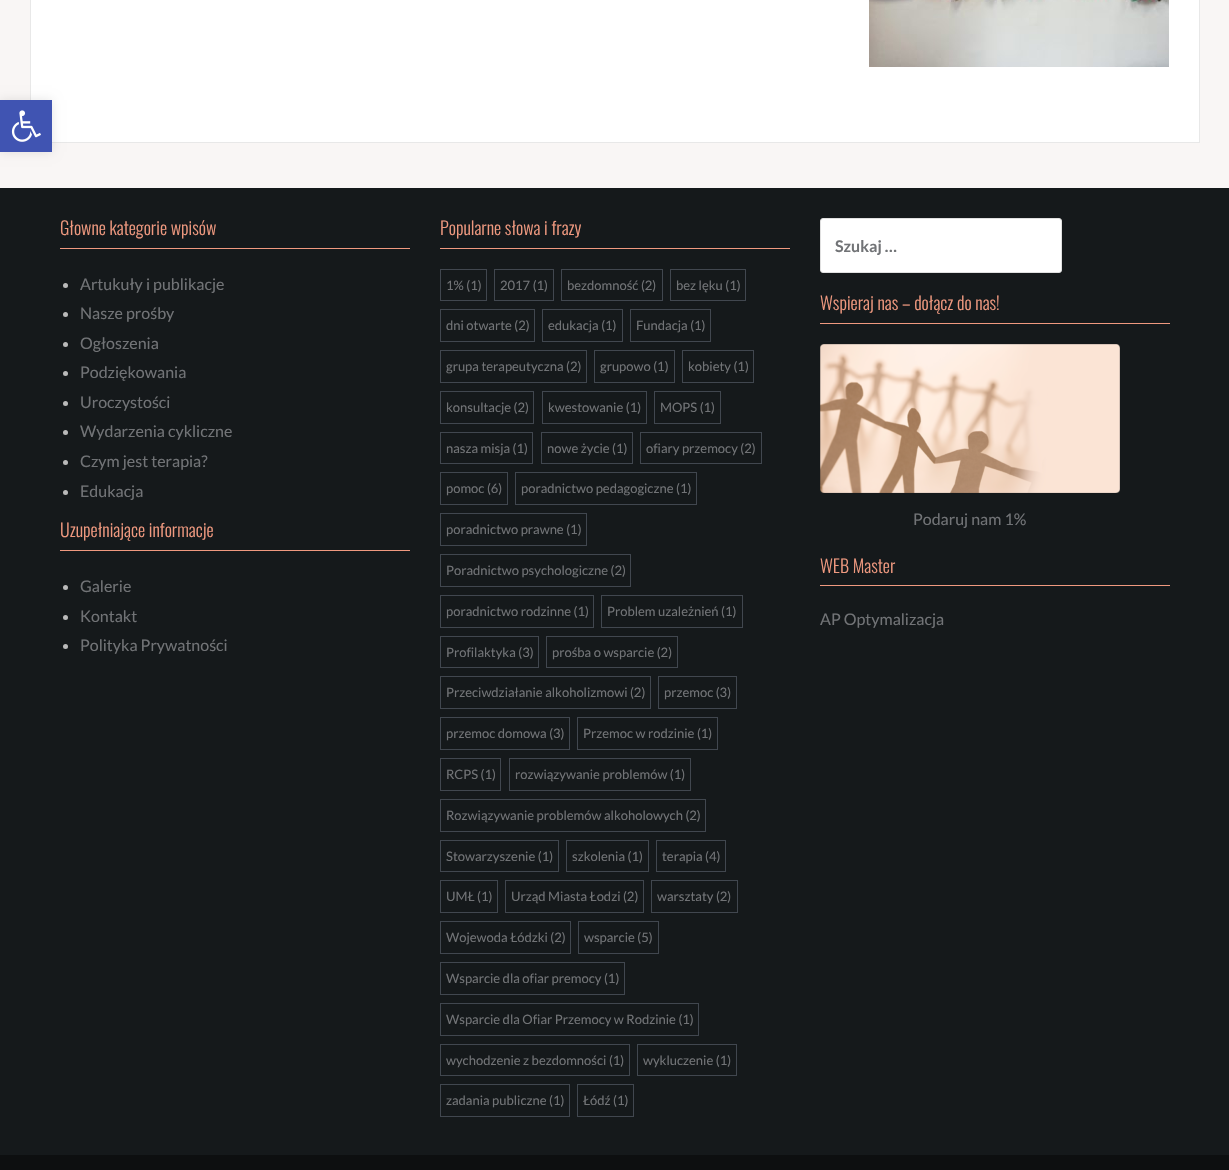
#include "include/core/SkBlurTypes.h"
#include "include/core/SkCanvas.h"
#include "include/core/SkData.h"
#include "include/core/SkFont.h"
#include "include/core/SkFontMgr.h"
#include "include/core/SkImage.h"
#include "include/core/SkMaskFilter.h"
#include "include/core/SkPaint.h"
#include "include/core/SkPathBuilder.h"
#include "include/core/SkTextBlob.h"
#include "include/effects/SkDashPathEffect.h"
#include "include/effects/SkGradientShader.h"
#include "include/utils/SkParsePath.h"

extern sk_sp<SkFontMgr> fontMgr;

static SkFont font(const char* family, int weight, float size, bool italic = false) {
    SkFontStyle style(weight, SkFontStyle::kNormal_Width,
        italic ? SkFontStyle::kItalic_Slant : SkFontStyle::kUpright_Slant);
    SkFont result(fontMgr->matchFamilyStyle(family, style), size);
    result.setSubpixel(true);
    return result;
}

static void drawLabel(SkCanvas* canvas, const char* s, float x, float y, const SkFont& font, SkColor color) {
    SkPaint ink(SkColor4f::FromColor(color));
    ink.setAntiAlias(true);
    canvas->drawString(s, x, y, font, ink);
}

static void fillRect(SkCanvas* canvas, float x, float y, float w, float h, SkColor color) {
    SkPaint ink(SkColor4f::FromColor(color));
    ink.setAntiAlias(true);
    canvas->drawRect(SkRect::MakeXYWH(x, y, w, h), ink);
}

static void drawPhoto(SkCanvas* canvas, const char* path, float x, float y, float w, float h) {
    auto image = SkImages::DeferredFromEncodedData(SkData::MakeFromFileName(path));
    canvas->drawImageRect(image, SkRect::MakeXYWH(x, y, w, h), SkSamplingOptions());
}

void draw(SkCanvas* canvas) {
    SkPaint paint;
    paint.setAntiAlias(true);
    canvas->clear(0xFFF9F6F5);
    paint.setColor(0xFFFFFFFF);
    canvas->drawRect(SkRect::MakeXYWH(30.5f, -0.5f, 1169, 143), paint);
    paint.setStroke(true);
    paint.setStrokeWidth(1);
    paint.setColor(0xFFE8E8E8);
    canvas->drawRect(SkRect::MakeXYWH(30.5f, -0.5f, 1169, 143), paint);
    paint.setStroke(false);
    paint.setColor(0x1A000000);
    paint.setMaskFilter(SkMaskFilter::MakeBlur(kNormal_SkBlurStyle, 5));
    canvas->drawRect(SkRect::MakeXYWH(0, 100, 52, 52), paint);
    paint.setMaskFilter(nullptr);
    fillRect(canvas, 0, 100, 52, 52, 0xFF4054B2);
    drawPhoto(canvas, "assets/img1.png", 11, 110, 30, 32);
    drawPhoto(canvas, "assets/img2.png", 869, 0, 300, 67);
    fillRect(canvas, 0, 188, 1229, 967, 0xFF15191B);
    fillRect(canvas, 60, 248, 350, 1, 0xFFEF997F);
    SkFont font1 = font("Oswald", 300, 18);
    drawLabel(canvas, "Głowne kategorie wpisów", 60, 235, font1, 0xFFEF997F);
    paint.setColor(0xFFBABABA);
    canvas->drawCircle(65.5f, 285.5f, 2.5f, paint);
    SkFont font2 = font("Lato", 400, 16);
    drawLabel(canvas, "Artukuły i publikacje", 80, 290, font2, 0xFF717376);
    canvas->drawCircle(65.5f, 314.5f, 2.5f, paint);
    drawLabel(canvas, "Nasze prośby", 80, 319, font2, 0xFF717376);
    canvas->drawCircle(65.5f, 344.5f, 2.5f, paint);
    drawLabel(canvas, "Ogłoszenia", 80, 349, font2, 0xFF717376);
    canvas->drawCircle(65.5f, 373.5f, 2.5f, paint);
    drawLabel(canvas, "Podziękowania", 80, 378, font2, 0xFF717376);
    canvas->drawCircle(65.5f, 403.5f, 2.5f, paint);
    drawLabel(canvas, "Uroczystości", 80, 408, font2, 0xFF717376);
    canvas->drawCircle(65.5f, 432.5f, 2.5f, paint);
    drawLabel(canvas, "Wydarzenia cykliczne", 80, 437, font2, 0xFF717376);
    canvas->drawCircle(65.5f, 462.5f, 2.5f, paint);
    drawLabel(canvas, "Czym jest terapia?", 80, 467, font2, 0xFF717376);
    canvas->drawCircle(65.5f, 492.5f, 2.5f, paint);
    drawLabel(canvas, "Edukacja", 80, 497, font2, 0xFF717376);
    fillRect(canvas, 60, 550, 350, 1, 0xFFEF997F);
    drawLabel(canvas, "Uzupełniające informacje", 60, 537, font1, 0xFFEF997F);
    canvas->drawCircle(65.5f, 587.5f, 2.5f, paint);
    drawLabel(canvas, "Galerie", 80, 592, font2, 0xFF717376);
    canvas->drawCircle(65.5f, 617.5f, 2.5f, paint);
    drawLabel(canvas, "Kontakt", 80, 622, font2, 0xFF717376);
    canvas->drawCircle(65.5f, 646.5f, 2.5f, paint);
    drawLabel(canvas, "Polityka Prywatności", 80, 651, font2, 0xFF717376);
    fillRect(canvas, 440, 248, 350, 1, 0xFFEF997F);
    drawLabel(canvas, "Popularne słowa i frazy", 440, 235, font1, 0xFFEF997F);
    paint.setStroke(true);
    paint.setColor(0xFF41474F);
    canvas->drawRect(SkRect::MakeXYWH(440.5f, 269.5f, 46, 31), paint);
    SkFont font3 = font("Lato", 400, 13);
    drawLabel(canvas, "1% (1)", 446, 290, font3, 0xFF717376);
    canvas->drawRect(SkRect::MakeXYWH(494.5f, 269.5f, 59, 31), paint);
    drawLabel(canvas, "2017 (1)", 500, 290, font3, 0xFF717376);
    canvas->drawRect(SkRect::MakeXYWH(561.5f, 269.5f, 101, 31), paint);
    drawLabel(canvas, "bezdomność (2)", 567, 290, font3, 0xFF717376);
    canvas->drawRect(SkRect::MakeXYWH(670.5f, 269.5f, 75, 31), paint);
    drawLabel(canvas, "bez lęku (1)", 676, 290, font3, 0xFF717376);
    canvas->drawRect(SkRect::MakeXYWH(440.5f, 309.5f, 94, 32), paint);
    drawLabel(canvas, "dni otwarte (2)", 446, 330, font3, 0xFF717376);
    canvas->drawRect(SkRect::MakeXYWH(542.5f, 309.5f, 80, 32), paint);
    drawLabel(canvas, "edukacja (1)", 548, 330, font3, 0xFF717376);
    canvas->drawRect(SkRect::MakeXYWH(630.5f, 309.5f, 80, 32), paint);
    drawLabel(canvas, "Fundacja (1)", 636, 330, font3, 0xFF717376);
    canvas->drawRect(SkRect::MakeXYWH(440.5f, 350.5f, 146, 32), paint);
    drawLabel(canvas, "grupa terapeutyczna (2)", 446, 371, font3, 0xFF717376);
    canvas->drawRect(SkRect::MakeXYWH(594.5f, 350.5f, 80, 32), paint);
    drawLabel(canvas, "grupowo (1)", 600, 371, font3, 0xFF717376);
    canvas->drawRect(SkRect::MakeXYWH(682.5f, 350.5f, 71, 32), paint);
    drawLabel(canvas, "kobiety (1)", 688, 371, font3, 0xFF717376);
    canvas->drawRect(SkRect::MakeXYWH(440.5f, 391.5f, 93, 32), paint);
    drawLabel(canvas, "konsultacje (2)", 446, 412, font3, 0xFF717376);
    canvas->drawRect(SkRect::MakeXYWH(542.5f, 391.5f, 104, 32), paint);
    drawLabel(canvas, "kwestowanie (1)", 548, 412, font3, 0xFF717376);
    canvas->drawRect(SkRect::MakeXYWH(654.5f, 391.5f, 66, 32), paint);
    drawLabel(canvas, "MOPS (1)", 660, 412, font3, 0xFF717376);
    canvas->drawRect(SkRect::MakeXYWH(440.5f, 432.5f, 92, 31), paint);
    drawLabel(canvas, "nasza misja (1)", 446, 453, font3, 0xFF717376);
    canvas->drawRect(SkRect::MakeXYWH(541.5f, 432.5f, 91, 31), paint);
    drawLabel(canvas, "nowe życie (1)", 547, 453, font3, 0xFF717376);
    canvas->drawRect(SkRect::MakeXYWH(640.5f, 432.5f, 121, 31), paint);
    drawLabel(canvas, "ofiary przemocy (2)", 646, 453, font3, 0xFF717376);
    canvas->drawRect(SkRect::MakeXYWH(440.5f, 472.5f, 67, 32), paint);
    drawLabel(canvas, "pomoc (6)", 446, 493, font3, 0xFF717376);
    canvas->drawRect(SkRect::MakeXYWH(515.5f, 472.5f, 181, 32), paint);
    drawLabel(canvas, "poradnictwo pedagogiczne (1)", 521, 493, font3, 0xFF717376);
    canvas->drawRect(SkRect::MakeXYWH(440.5f, 513.5f, 146, 32), paint);
    drawLabel(canvas, "poradnictwo prawne (1)", 446, 534, font3, 0xFF717376);
    canvas->drawRect(SkRect::MakeXYWH(440.5f, 554.5f, 190, 32), paint);
    drawLabel(canvas, "Poradnictwo psychologiczne (2)", 446, 575, font3, 0xFF717376);
    canvas->drawRect(SkRect::MakeXYWH(440.5f, 595.5f, 153, 32), paint);
    drawLabel(canvas, "poradnictwo rodzinne (1)", 446, 616, font3, 0xFF717376);
    canvas->drawRect(SkRect::MakeXYWH(601.5f, 595.5f, 141, 32), paint);
    drawLabel(canvas, "Problem uzależnień (1)", 607, 616, font3, 0xFF717376);
    canvas->drawRect(SkRect::MakeXYWH(440.5f, 636.5f, 98, 31), paint);
    drawLabel(canvas, "Profilaktyka (3)", 446, 657, font3, 0xFF717376);
    canvas->drawRect(SkRect::MakeXYWH(546.5f, 636.5f, 131, 31), paint);
    drawLabel(canvas, "prośba o wsparcie (2)", 552, 657, font3, 0xFF717376);
    canvas->drawRect(SkRect::MakeXYWH(440.5f, 676.5f, 210, 32), paint);
    drawLabel(canvas, "Przeciwdziałanie alkoholizmowi (2)", 446, 697, font3, 0xFF717376);
    canvas->drawRect(SkRect::MakeXYWH(658.5f, 676.5f, 78, 32), paint);
    drawLabel(canvas, "przemoc (3)", 664, 697, font3, 0xFF717376);
    canvas->drawRect(SkRect::MakeXYWH(440.5f, 717.5f, 129, 32), paint);
    drawLabel(canvas, "przemoc domowa (3)", 446, 738, font3, 0xFF717376);
    canvas->drawRect(SkRect::MakeXYWH(577.5f, 717.5f, 140, 32), paint);
    drawLabel(canvas, "Przemoc w rodzinie (1)", 583, 738, font3, 0xFF717376);
    canvas->drawRect(SkRect::MakeXYWH(440.5f, 758.5f, 60, 32), paint);
    drawLabel(canvas, "RCPS (1)", 446, 779, font3, 0xFF717376);
    canvas->drawRect(SkRect::MakeXYWH(509.5f, 758.5f, 181, 32), paint);
    drawLabel(canvas, "rozwiązywanie problemów (1)", 515, 779, font3, 0xFF717376);
    canvas->drawRect(SkRect::MakeXYWH(440.5f, 799.5f, 265, 32), paint);
    drawLabel(canvas, "Rozwiązywanie problemów alkoholowych (2)", 446, 820, font3, 0xFF717376);
    canvas->drawRect(SkRect::MakeXYWH(440.5f, 840.5f, 118, 31), paint);
    drawLabel(canvas, "Stowarzyszenie (1)", 446, 861, font3, 0xFF717376);
    canvas->drawRect(SkRect::MakeXYWH(566.5f, 840.5f, 82, 31), paint);
    drawLabel(canvas, "szkolenia (1)", 572, 861, font3, 0xFF717376);
    canvas->drawRect(SkRect::MakeXYWH(656.5f, 840.5f, 69, 31), paint);
    drawLabel(canvas, "terapia (4)", 662, 861, font3, 0xFF717376);
    canvas->drawRect(SkRect::MakeXYWH(440.5f, 880.5f, 57, 32), paint);
    drawLabel(canvas, "UMŁ (1)", 446, 901, font3, 0xFF717376);
    canvas->drawRect(SkRect::MakeXYWH(505.5f, 880.5f, 138, 32), paint);
    drawLabel(canvas, "Urząd Miasta Łodzi (2)", 511, 901, font3, 0xFF717376);
    canvas->drawRect(SkRect::MakeXYWH(651.5f, 880.5f, 86, 32), paint);
    drawLabel(canvas, "warsztaty (2)", 657, 901, font3, 0xFF717376);
    canvas->drawRect(SkRect::MakeXYWH(440.5f, 921.5f, 130, 32), paint);
    drawLabel(canvas, "Wojewoda Łódzki (2)", 446, 942, font3, 0xFF717376);
    canvas->drawRect(SkRect::MakeXYWH(578.5f, 921.5f, 80, 32), paint);
    drawLabel(canvas, "wsparcie (5)", 584, 942, font3, 0xFF717376);
    canvas->drawRect(SkRect::MakeXYWH(440.5f, 962.5f, 184, 32), paint);
    drawLabel(canvas, "Wsparcie dla ofiar premocy (1)", 446, 983, font3, 0xFF717376);
    canvas->drawRect(SkRect::MakeXYWH(440.5f, 1003.5f, 258, 32), paint);
    drawLabel(canvas, "Wsparcie dla Ofiar Przemocy w Rodzinie (1)", 446, 1024, font3, 0xFF717376);
    canvas->drawRect(SkRect::MakeXYWH(440.5f, 1044.5f, 189, 31), paint);
    drawLabel(canvas, "wychodzenie z bezdomności (1)", 446, 1065, font3, 0xFF717376);
    canvas->drawRect(SkRect::MakeXYWH(637.5f, 1044.5f, 99, 31), paint);
    drawLabel(canvas, "wykluczenie (1)", 643, 1065, font3, 0xFF717376);
    canvas->drawRect(SkRect::MakeXYWH(440.5f, 1084.5f, 129, 32), paint);
    drawLabel(canvas, "zadania publiczne (1)", 446, 1105, font3, 0xFF717376);
    canvas->drawRect(SkRect::MakeXYWH(577.5f, 1084.5f, 56, 32), paint);
    drawLabel(canvas, "Łódź (1)", 583, 1105, font3, 0xFF717376);
    paint.setStroke(false);
    paint.setColor(0xFFFFFFFF);
    canvas->drawRoundRect(SkRect::MakeXYWH(820.5f, 218.5f, 241, 54), 2.5f, 2.5f, paint);
    paint.setStroke(true);
    paint.setColor(0xFFE0E0E0);
    canvas->drawRoundRect(SkRect::MakeXYWH(820.5f, 218.5f, 241, 54), 2.5f, 2.5f, paint);
    SkFont font4 = font("Lato", 700, 16);
    drawLabel(canvas, "Szukaj …", 835, 252, font4, 0xFF717376);
    fillRect(canvas, 820, 323, 350, 1, 0xFFEF997F);
    drawLabel(canvas, "Wspieraj nas – dołącz do nas!", 820, 310, font1, 0xFFEF997F);
    drawPhoto(canvas, "assets/img3.png", 820, 344, 300, 149);
    drawLabel(canvas, "Podaruj nam 1%", 913, 525, font2, 0xFF717376);
    fillRect(canvas, 820, 585, 350, 1, 0xFFEF997F);
    drawLabel(canvas, "WEB Master", 820, 573, font1, 0xFFEF997F);
    drawLabel(canvas, "AP Optymalizacja", 820, 625, font2, 0xFF717376);
    fillRect(canvas, 0, 1155, 1229, 15, 0xFF0D0F10);
}
